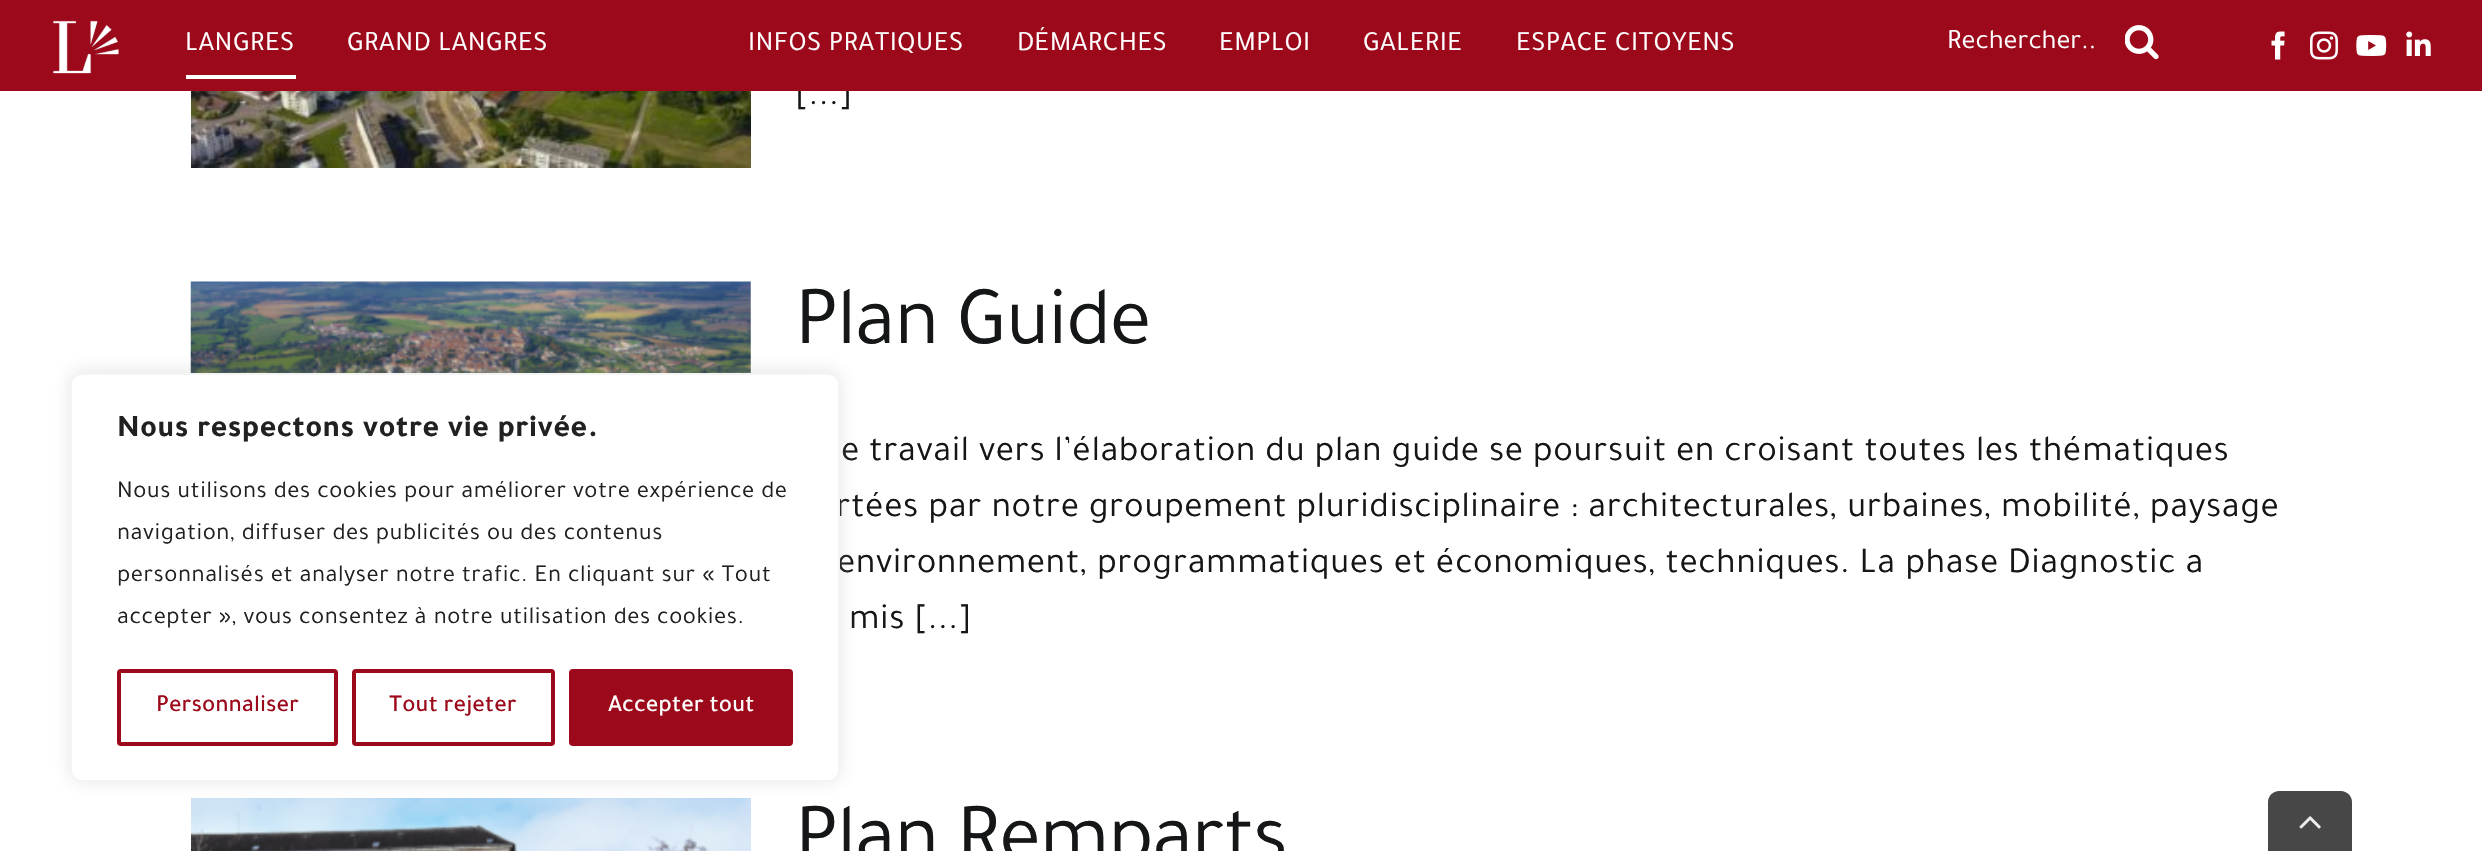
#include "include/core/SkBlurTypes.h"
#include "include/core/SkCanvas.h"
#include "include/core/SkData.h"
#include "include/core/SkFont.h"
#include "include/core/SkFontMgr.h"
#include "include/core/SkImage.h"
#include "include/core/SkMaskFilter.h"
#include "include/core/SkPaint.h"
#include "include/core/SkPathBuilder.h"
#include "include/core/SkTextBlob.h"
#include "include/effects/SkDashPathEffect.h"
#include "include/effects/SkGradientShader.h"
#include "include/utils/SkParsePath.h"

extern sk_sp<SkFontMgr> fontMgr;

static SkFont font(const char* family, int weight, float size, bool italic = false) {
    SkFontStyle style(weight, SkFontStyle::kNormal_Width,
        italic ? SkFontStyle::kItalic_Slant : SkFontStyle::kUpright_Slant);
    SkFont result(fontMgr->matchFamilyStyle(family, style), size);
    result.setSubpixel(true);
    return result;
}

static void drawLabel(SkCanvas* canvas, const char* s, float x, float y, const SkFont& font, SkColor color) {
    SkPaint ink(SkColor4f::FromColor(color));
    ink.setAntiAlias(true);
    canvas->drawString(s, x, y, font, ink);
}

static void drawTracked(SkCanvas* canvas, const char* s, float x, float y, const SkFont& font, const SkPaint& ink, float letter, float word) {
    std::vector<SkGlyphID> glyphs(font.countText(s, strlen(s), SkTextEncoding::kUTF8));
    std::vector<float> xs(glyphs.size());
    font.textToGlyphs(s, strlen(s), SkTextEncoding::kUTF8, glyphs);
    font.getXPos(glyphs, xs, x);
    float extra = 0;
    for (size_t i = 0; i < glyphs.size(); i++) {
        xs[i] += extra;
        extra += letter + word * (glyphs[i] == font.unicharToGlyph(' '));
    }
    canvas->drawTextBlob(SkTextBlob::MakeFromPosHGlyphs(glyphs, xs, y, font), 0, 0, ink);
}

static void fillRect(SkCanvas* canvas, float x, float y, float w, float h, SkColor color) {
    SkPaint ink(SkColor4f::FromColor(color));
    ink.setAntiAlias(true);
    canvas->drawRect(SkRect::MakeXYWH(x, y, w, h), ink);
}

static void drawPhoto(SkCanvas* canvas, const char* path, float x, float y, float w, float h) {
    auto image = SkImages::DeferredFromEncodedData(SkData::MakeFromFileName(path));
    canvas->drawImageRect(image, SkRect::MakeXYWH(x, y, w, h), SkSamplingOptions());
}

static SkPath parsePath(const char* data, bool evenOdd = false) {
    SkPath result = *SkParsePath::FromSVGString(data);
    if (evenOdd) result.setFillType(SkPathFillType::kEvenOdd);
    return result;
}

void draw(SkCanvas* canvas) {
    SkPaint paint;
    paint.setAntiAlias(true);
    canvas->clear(0xFFFFFFFF);
    SkFont font1 = font("Tajawal", 400, 36.75f);
    paint.setColor(0xFF141617);
    drawTracked(canvas, "[...]", 795, 104, font1, paint, 0.55f, 0);
    fillRect(canvas, 0, 0, 2482, 91, 0xFF9B091A);
    drawPhoto(canvas, "assets/img1.png", 52, 20, 67, 54);
    fillRect(canvas, 186, 75, 110, 4, 0xFFFFFFFF);
    SkFont font2 = font("Tajawal", 400, 28);
    paint.setColor(0xFFFFFFFF);
    drawTracked(canvas, "LANGRES", 185, 50, font2, paint, 0.4f, 0);
    drawTracked(canvas, "GRAND LANGRES", 347, 50, font2, paint, 0.4f, 0);
    drawTracked(canvas, "INFOS PRATIQUES", 748, 50, font2, paint, 0.4f, 0);
    drawTracked(canvas, "DÉMARCHES", 1017, 50, font2, paint, 0.4f, 0);
    drawTracked(canvas, "EMPLOI", 1219, 50, font2, paint, 0.4f, 0);
    drawTracked(canvas, "GALERIE", 1363, 50, font2, paint, 0.4f, 0);
    drawTracked(canvas, "ESPACE CITOYENS", 1516, 50, font2, paint, 0.4f, 0);
    drawLabel(canvas, "Rechercher..", 1947, 48, font2, 0xFFFFFFFF);
    drawPhoto(canvas, "assets/img2.png", 2125, 25, 34, 35);
    drawPhoto(canvas, "assets/img3.png", 2271, 31, 14, 29);
    drawPhoto(canvas, "assets/img4.png", 2310, 31, 28, 29);
    drawPhoto(canvas, "assets/img5.png", 2356, 35, 31, 21);
    drawPhoto(canvas, "assets/img6.png", 2406, 31, 25, 25);
    drawPhoto(canvas, "assets/img7.png", 191, 91, 560, 77);
    drawPhoto(canvas, "assets/img8.png", 190, 281, 561, 92);
    SkFont font3 = font("Tajawal", 400, 84);
    paint.setColor(0xFF141617);
    drawTracked(canvas, "Plan Guide", 795, 343, font3, paint, -1.25f, 0);
    drawTracked(canvas, "e travail vers l’élaboration du plan guide se poursuit en croisant toutes les thématiques", 841, 460, font1, paint, 0.55f, 0);
    drawTracked(canvas, "rtées par notre groupement pluridisciplinaire : architecturales, urbaines, mobilité, paysage", 836, 516, font1, paint, 0.55f, 0);
    drawTracked(canvas, "environnement, programmatiques et économiques, techniques. La phase Diagnostic a", 837, 572, font1, paint, 0.55f, 0);
    drawTracked(canvas, "mis [...]", 849, 628, font1, paint, 0.55f, 0);
    drawPhoto(canvas, "assets/img9.png", 191, 798, 560, 53);
    drawTracked(canvas, "Plan Remparts", 795, 860, font3, paint, -1.25f, 0);
    paint.setColor(0x4DACABAB);
    paint.setMaskFilter(SkMaskFilter::MakeBlur(kNormal_SkBlurStyle, 9));
    canvas->drawRoundRect(SkRect::MakeXYWH(70, 371, 770, 410), 11, 11, paint);
    paint.setMaskFilter(nullptr);
    paint.setColor(0xFFFFFFFF);
    canvas->drawRoundRect(SkRect::MakeXYWH(71, 374, 768, 407), 10, 10, paint);
    paint.setStroke(true);
    paint.setStrokeWidth(2);
    paint.setColor(0xFFF4F4F4);
    canvas->drawRoundRect(SkRect::MakeXYWH(71, 374, 768, 407), 10, 10, paint);
    SkFont font4 = font("Tajawal", 700, 31.5f);
    paint.setStroke(false);
    paint.setColor(0xFF212121);
    drawTracked(canvas, "Nous respectons votre vie privée.", 117, 436, font4, paint, 0.55f, 0);
    SkFont font5 = font("Tajawal", 400, 24.5f);
    drawTracked(canvas, "Nous utilisons des cookies pour améliorer votre expérience de", 117, 497, font5, paint, 0.55f, 0);
    drawTracked(canvas, "navigation, diffuser des publicités ou des contenus", 117, 539, font5, paint, 0.55f, 0);
    drawTracked(canvas, "personnalisés et analyser notre trafic. En cliquant sur « Tout", 117, 581, font5, paint, 0.55f, 0);
    drawTracked(canvas, "accepter », vous consentez à notre utilisation des cookies.", 117, 623, font5, paint, 0.55f, 0);
    paint.setStroke(true);
    paint.setStrokeWidth(4);
    paint.setColor(0xFF9B091A);
    canvas->drawRoundRect(SkRect::MakeXYWH(119, 671, 217, 73), 2, 2, paint);
    SkFont font6 = font("Tajawal", 500, 24.5f);
    drawLabel(canvas, "Personnaliser", 156, 711, font6, 0xFF9B091A);
    canvas->drawRoundRect(SkRect::MakeXYWH(354, 671, 199, 73), 2, 2, paint);
    drawLabel(canvas, "Tout rejeter", 389, 711, font6, 0xFF9B091A);
    paint.setStroke(false);
    canvas->drawRoundRect(SkRect::MakeXYWH(571, 671, 220, 73), 2, 2, paint);
    paint.setStroke(true);
    canvas->drawRoundRect(SkRect::MakeXYWH(571, 671, 220, 73), 2, 2, paint);
    drawLabel(canvas, "Accepter tout", 608, 711, font6, 0xFFFFFFFF);
    paint.setStroke(false);
    paint.setColor(0xFF474747);
    canvas->drawPath(parsePath("M2279 791H2341C2347 791 2352 796 2352 802V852H2268V802C2268 796 2273 791 2279 791Z"), paint);
    drawPhoto(canvas, "assets/img10.png", 2299, 816, 22, 13);
}
